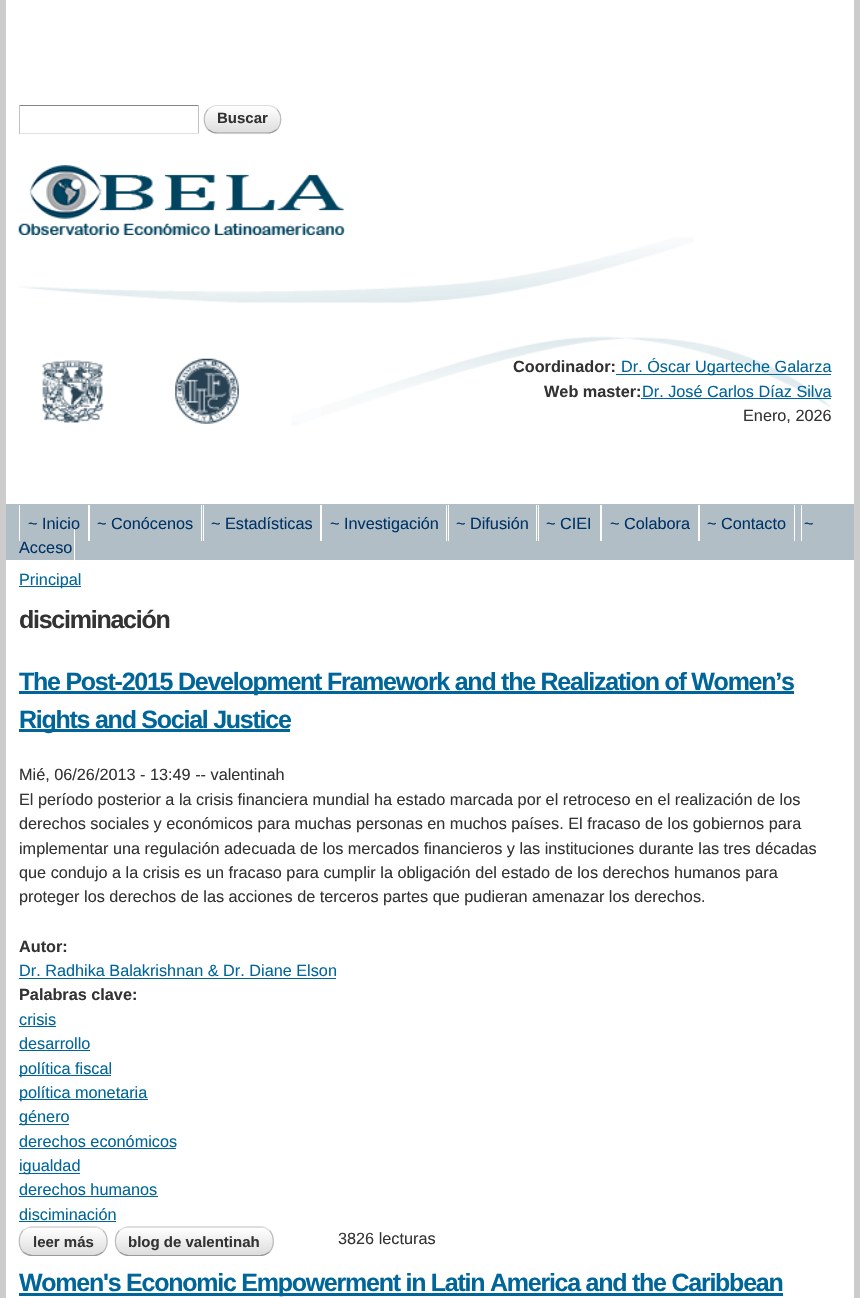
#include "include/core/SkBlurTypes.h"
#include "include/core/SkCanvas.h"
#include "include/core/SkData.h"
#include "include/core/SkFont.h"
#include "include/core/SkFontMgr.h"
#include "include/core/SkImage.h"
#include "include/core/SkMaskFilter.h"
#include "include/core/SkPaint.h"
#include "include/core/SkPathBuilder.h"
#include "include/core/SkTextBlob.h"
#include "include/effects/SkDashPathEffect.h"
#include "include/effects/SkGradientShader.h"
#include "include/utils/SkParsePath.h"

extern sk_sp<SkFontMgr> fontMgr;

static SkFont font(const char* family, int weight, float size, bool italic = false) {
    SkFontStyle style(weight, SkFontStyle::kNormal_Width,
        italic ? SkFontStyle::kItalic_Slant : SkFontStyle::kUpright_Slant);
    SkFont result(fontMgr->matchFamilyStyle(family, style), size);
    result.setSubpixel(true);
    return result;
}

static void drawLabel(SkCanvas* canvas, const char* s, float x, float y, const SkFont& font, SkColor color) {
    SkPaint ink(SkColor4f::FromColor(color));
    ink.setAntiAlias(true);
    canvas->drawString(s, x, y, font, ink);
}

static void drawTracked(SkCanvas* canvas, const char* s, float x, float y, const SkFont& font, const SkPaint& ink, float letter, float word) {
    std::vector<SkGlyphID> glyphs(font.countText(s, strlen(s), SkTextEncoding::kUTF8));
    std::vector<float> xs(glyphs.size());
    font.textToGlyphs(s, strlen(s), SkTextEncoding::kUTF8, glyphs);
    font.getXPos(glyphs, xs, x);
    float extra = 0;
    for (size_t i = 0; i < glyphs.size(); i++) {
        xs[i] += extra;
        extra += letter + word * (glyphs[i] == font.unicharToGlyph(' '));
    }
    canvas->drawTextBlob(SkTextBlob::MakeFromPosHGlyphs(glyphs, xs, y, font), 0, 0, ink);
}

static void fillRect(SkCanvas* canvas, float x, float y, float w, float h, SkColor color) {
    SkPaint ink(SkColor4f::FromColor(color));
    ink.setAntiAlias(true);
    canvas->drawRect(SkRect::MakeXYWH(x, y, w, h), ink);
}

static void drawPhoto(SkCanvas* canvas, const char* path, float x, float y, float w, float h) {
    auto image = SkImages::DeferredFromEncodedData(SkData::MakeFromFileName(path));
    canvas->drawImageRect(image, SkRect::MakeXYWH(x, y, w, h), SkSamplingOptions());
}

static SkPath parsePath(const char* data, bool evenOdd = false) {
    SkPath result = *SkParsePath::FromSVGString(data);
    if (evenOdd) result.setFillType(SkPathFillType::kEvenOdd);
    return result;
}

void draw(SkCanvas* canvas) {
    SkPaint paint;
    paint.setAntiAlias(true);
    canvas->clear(0xFFCCCCCC);
    fillRect(canvas, 6, 0, 848, 504, 0xFFFFFFFF);
    fillRect(canvas, 19, 105, 180, 1, 0xFF848484);
    fillRect(canvas, 198, 105, 1, 29, 0xFFC1C1C1);
    fillRect(canvas, 19, 133, 180, 1, 0xFFE1E1E1);
    fillRect(canvas, 19, 105, 1, 29, 0xFFC1C1C1);
    canvas->save();
    canvas->clipPath(parsePath("M218 105H267C274.5 105 281 111.5 281 119V120C281 127.5 274.5 134 267 134H218C210.5 134 204 127.5 204 120V119C204 111.5 210.5 105 218 105Z"), true);
    {
        const SkColor colors[] = {0xFFFFFFFF, 0xFFDDDDDD};
        const float stops[] = {0, 1};
        const SkPoint ends[] = {{205, 106}, {205, 133}};
        paint.setShader(SkGradientShader::MakeLinear(ends, colors, stops, 2, SkTileMode::kClamp));
        paint.setAlpha(255);
    }
    canvas->drawRect(SkRect::MakeXYWH(204, 106, 77, 27), paint);
    canvas->restore();
    paint.setStroke(true);
    paint.setStrokeWidth(1.2f);
    paint.setShader(nullptr);
    paint.setColor(0xFFDDDDDD);
    canvas->drawPath(parsePath("M208 109.5C210.5 107 214 105.5 217.5 105.5H267.5C271 105.5 274.5 107 277 109.5"), paint);
    paint.setColor(0xFFBBBBBB);
    canvas->drawPath(parsePath("M277 109.5C282 114.5 282 124 277 129.5"), paint);
    paint.setColor(0xFF999999);
    canvas->drawPath(parsePath("M277 129.5C274.5 131.5 271 133 267.5 133H217.5C214 133 210.5 131.5 208 129.5"), paint);
    paint.setColor(0xFFBBBBBB);
    canvas->drawPath(parsePath("M208 129.5C203 124 203 114.5 208 109.5"), paint);
    SkFont font1 = font("Liberation Sans", 700, 15);
    drawLabel(canvas, "Buscar", 217, 123, font1, 0xFF333333);
    drawPhoto(canvas, "assets/img1.png", 19, 237, 675, 66);
    drawPhoto(canvas, "assets/img2.png", 18, 165, 327, 70);
    drawPhoto(canvas, "assets/img3.png", 291, 336, 540, 90);
    drawPhoto(canvas, "assets/img4.png", 42, 360, 62, 63);
    drawPhoto(canvas, "assets/img5.png", 175, 358, 64, 66);
    SkFont font2 = font("Liberation Sans", 700, 16.25f);
    drawLabel(canvas, "Coordinador:", 513, 372, font2, 0xFF333333);
    fillRect(canvas, 616, 374, 215, 1, 0xFF006699);
    SkFont font3 = font("Liberation Sans", 400, 16.25f);
    drawLabel(canvas, "Dr. Óscar Ugarteche Galarza", 621, 372, font3, 0xFF006699);
    drawLabel(canvas, "Web master:", 544, 397, font2, 0xFF333333);
    drawLabel(canvas, "Dr. José Carlos Díaz Silva", 642, 397, font3, 0xFF006699);
    fillRect(canvas, 641, 398, 190, 1, 0xFF006699);
    drawLabel(canvas, "Enero, 2026", 743, 421, font3, 0xFF333333);
    fillRect(canvas, 6, 504, 848, 56, 0xFFB2BEC5);
    drawLabel(canvas, "~ Inicio", 28, 529, font3, 0xFF003366);
    fillRect(canvas, 19, 505, 1, 36, 0xFFFFFFFF);
    drawLabel(canvas, "~ Conócenos", 97, 529, font3, 0xFF003366);
    fillRect(canvas, 88, 505, 2, 36, 0xFFFFFFFF);
    fillRect(canvas, 201, 505, 1, 36, 0xFFFFFFFF);
    drawLabel(canvas, "~ Estadísticas", 211, 529, font3, 0xFF003366);
    fillRect(canvas, 320, 505, 2, 36, 0xFFFFFFFF);
    fillRect(canvas, 203, 505, 1, 36, 0xFFFFFFFF);
    drawLabel(canvas, "~ Investigación", 330, 529, font3, 0xFF003366);
    drawLabel(canvas, "~ Difusión", 456, 529, font3, 0xFF003366);
    fillRect(canvas, 446, 505, 1, 36, 0xFFFFFFFF);
    fillRect(canvas, 536, 505, 1, 36, 0xFFFFFFFF);
    fillRect(canvas, 448, 505, 1, 36, 0xFFFFFFFF);
    drawLabel(canvas, "~ CIEI", 546, 529, font3, 0xFF003366);
    fillRect(canvas, 538, 505, 1, 36, 0xFFFFFFFF);
    drawLabel(canvas, "~ Colabora", 610, 529, font3, 0xFF003366);
    fillRect(canvas, 600, 505, 2, 36, 0xFFFFFFFF);
    drawLabel(canvas, "~ Contacto", 707, 529, font3, 0xFF003366);
    fillRect(canvas, 698, 505, 2, 36, 0xFFFFFFFF);
    fillRect(canvas, 794, 505, 1, 36, 0xFFFFFFFF);
    drawLabel(canvas, "~", 804, 529, font3, 0xFF003366);
    fillRect(canvas, 801, 505, 1, 36, 0xFFFFFFFF);
    drawLabel(canvas, "Acceso", 19, 553, font3, 0xFF003366);
    fillRect(canvas, 6, 560, 848, 738, 0xFFFFFFFF);
    fillRect(canvas, 74, 529, 1, 36, 0xFFFFFFFF);
    fillRect(canvas, 19, 586, 62, 1, 0xFF006699);
    drawLabel(canvas, "Principal", 19, 585, font3, 0xFF006699);
    SkFont font4 = font("Liberation Sans", 700, 25);
    paint.setStroke(false);
    paint.setColor(0xFF333333);
    drawTracked(canvas, "disciminación", 19, 628, font4, paint, -1.25f, 0);
    fillRect(canvas, 19, 691, 775, 3, 0xFF006699);
    paint.setColor(0xFF006699);
    drawTracked(canvas, "The Post-2015 Development Framework and the Realization of Women’s", 19, 690, font4, paint, -1.25f, 0);
    fillRect(canvas, 19, 729, 271, 3, 0xFF006699);
    drawTracked(canvas, "Rights and Social Justice", 19, 728, font4, paint, -1.25f, 0);
    drawLabel(canvas, "Mié, 06/26/2013 - 13:49 -- valentinah", 19, 780, font3, 0xFF333333);
    drawLabel(canvas, "El período posterior a la crisis financiera mundial ha estado marcada por el retroceso en el realización de los", 19, 805, font3, 0xFF333333);
    drawLabel(canvas, "derechos sociales y económicos para muchas personas en muchos países. El fracaso de los gobiernos para", 19, 829, font3, 0xFF333333);
    drawLabel(canvas, "implementar una regulación adecuada de los mercados financieros y las instituciones durante las tres décadas", 19, 854, font3, 0xFF333333);
    drawLabel(canvas, "que condujo a la crisis es un fracaso para cumplir la obligación del estado de los derechos humanos para", 19, 878, font3, 0xFF333333);
    drawLabel(canvas, "proteger los derechos de las acciones de terceros partes que pudieran amenazar los derechos.", 19, 902, font3, 0xFF333333);
    drawLabel(canvas, "Autor:", 19, 952, font2, 0xFF333333);
    drawLabel(canvas, "Dr. Radhika Balakrishnan & Dr. Diane Elson", 19, 976, font3, 0xFF006699);
    fillRect(canvas, 19, 978, 317, 1, 0xFF006699);
    drawLabel(canvas, "Palabras clave:", 19, 1000, font2, 0xFF333333);
    drawLabel(canvas, "crisis", 19, 1025, font3, 0xFF006699);
    fillRect(canvas, 19, 1026, 37, 1, 0xFF006699);
    drawLabel(canvas, "desarrollo", 19, 1049, font3, 0xFF006699);
    fillRect(canvas, 19, 1050, 71, 1, 0xFF006699);
    fillRect(canvas, 19, 1075, 92, 1, 0xFF006699);
    drawLabel(canvas, "política fiscal", 19, 1074, font3, 0xFF006699);
    fillRect(canvas, 19, 1099, 129, 1, 0xFF006699);
    drawLabel(canvas, "política monetaria", 19, 1098, font3, 0xFF006699);
    fillRect(canvas, 19, 1124, 50, 1, 0xFF006699);
    drawLabel(canvas, "género", 19, 1122, font3, 0xFF006699);
    drawLabel(canvas, "derechos económicos", 19, 1147, font3, 0xFF006699);
    fillRect(canvas, 19, 1148, 157, 1, 0xFF006699);
    fillRect(canvas, 19, 1173, 61, 1, 0xFF006699);
    drawLabel(canvas, "igualdad", 19, 1171, font3, 0xFF006699);
    drawLabel(canvas, "derechos humanos", 19, 1195, font3, 0xFF006699);
    fillRect(canvas, 19, 1196, 139, 1, 0xFF006699);
    drawLabel(canvas, "disciminación", 19, 1220, font3, 0xFF006699);
    fillRect(canvas, 19, 1221, 97, 1, 0xFF006699);
    canvas->save();
    canvas->clipPath(parsePath("M33 1226H94C101.5 1226 108 1232.5 108 1240V1242C108 1249.5 101.5 1256 94 1256H33C25.5 1256 19 1249.5 19 1242V1240C19 1232.5 25.5 1226 33 1226Z"), true);
    {
        const SkColor colors[] = {0xFFFFFFFF, 0xFFDDDDDD};
        const float stops[] = {0, 1};
        const SkPoint ends[] = {{20, 1200}, {20, 1228}};
        paint.setShader(SkGradientShader::MakeLinear(ends, colors, stops, 2, SkTileMode::kClamp));
        paint.setAlpha(255);
    }
    canvas->drawRect(SkRect::MakeXYWH(19, 1226, 89, 2), paint);
    {
        const SkColor colors[] = {0xFFFFFFFF, 0xFFDDDDDD};
        const float stops[] = {0, 1};
        const SkPoint ends[] = {{20, 1228}, {20, 1255}};
        paint.setShader(SkGradientShader::MakeLinear(ends, colors, stops, 2, SkTileMode::kClamp));
        paint.setAlpha(255);
    }
    canvas->drawRect(SkRect::MakeXYWH(19, 1228, 89, 27), paint);
    canvas->restore();
    paint.setStroke(true);
    paint.setShader(nullptr);
    paint.setColor(0xFFDDDDDD);
    canvas->drawPath(parsePath("M23 1230.5C25.5 1228.5 29 1227 32.5 1227H94C97 1227 100.5 1228.5 103 1230.5"), paint);
    paint.setColor(0xFFBBBBBB);
    canvas->drawPath(parsePath("M103 1230.5C108.5 1236 108.5 1246.5 103 1252"), paint);
    paint.setColor(0xFF999999);
    canvas->drawPath(parsePath("M103 1252C100.5 1254 97 1255.5 94 1255.5H32.5C29 1255.5 25.5 1254 23 1252"), paint);
    paint.setColor(0xFFBBBBBB);
    canvas->drawPath(parsePath("M23 1252C18 1246.5 18 1236 23 1230.5"), paint);
    drawLabel(canvas, "leer más", 33, 1247, font1, 0xFF333333);
    canvas->save();
    canvas->clipPath(parsePath("M129 1226H260C267.5 1226 274 1232.5 274 1240V1242C274 1249.5 267.5 1256 260 1256H129C121.5 1256 115 1249.5 115 1242V1240C115 1232.5 121.5 1226 129 1226Z"), true);
    paint.setStroke(false);
    {
        const SkColor colors[] = {0xFFFFFFFF, 0xFFDDDDDD};
        const float stops[] = {0, 1};
        const SkPoint ends[] = {{116, 1200}, {116, 1228}};
        paint.setShader(SkGradientShader::MakeLinear(ends, colors, stops, 2, SkTileMode::kClamp));
        paint.setAlpha(255);
    }
    canvas->drawRect(SkRect::MakeXYWH(115, 1226, 159, 2), paint);
    {
        const SkColor colors[] = {0xFFFFFFFF, 0xFFDDDDDD};
        const float stops[] = {0, 1};
        const SkPoint ends[] = {{116, 1228}, {116, 1255}};
        paint.setShader(SkGradientShader::MakeLinear(ends, colors, stops, 2, SkTileMode::kClamp));
        paint.setAlpha(255);
    }
    canvas->drawRect(SkRect::MakeXYWH(115, 1228, 159, 27), paint);
    canvas->restore();
    paint.setStroke(true);
    paint.setShader(nullptr);
    paint.setColor(0xFFDDDDDD);
    canvas->drawPath(parsePath("M119.5 1230.5C122 1228.5 125.5 1227 129 1227H260C263.5 1227 267 1228.5 269.5 1230.5"), paint);
    paint.setColor(0xFFBBBBBB);
    canvas->drawPath(parsePath("M269.5 1230.5C274.5 1236 274.5 1246.5 269.5 1252"), paint);
    paint.setColor(0xFF999999);
    canvas->drawPath(parsePath("M269.5 1252C267 1254 263.5 1255.5 260 1255.5H129C125.5 1255.5 122 1254 119.5 1252"), paint);
    paint.setColor(0xFFBBBBBB);
    canvas->drawPath(parsePath("M119.5 1252C114 1246.5 114 1236 119.5 1230.5"), paint);
    drawLabel(canvas, "blog de valentinah", 128, 1247, font1, 0xFF333333);
    drawLabel(canvas, "3826 lecturas", 338, 1244, font3, 0xFF333333);
    fillRect(canvas, 19, 1293, 764, 3, 0xFF006699);
    paint.setStroke(false);
    paint.setColor(0xFF006699);
    drawTracked(canvas, "Women's Economic Empowerment in Latin America and the Caribbean", 19, 1291, font4, paint, -1.25f, 0);
}
